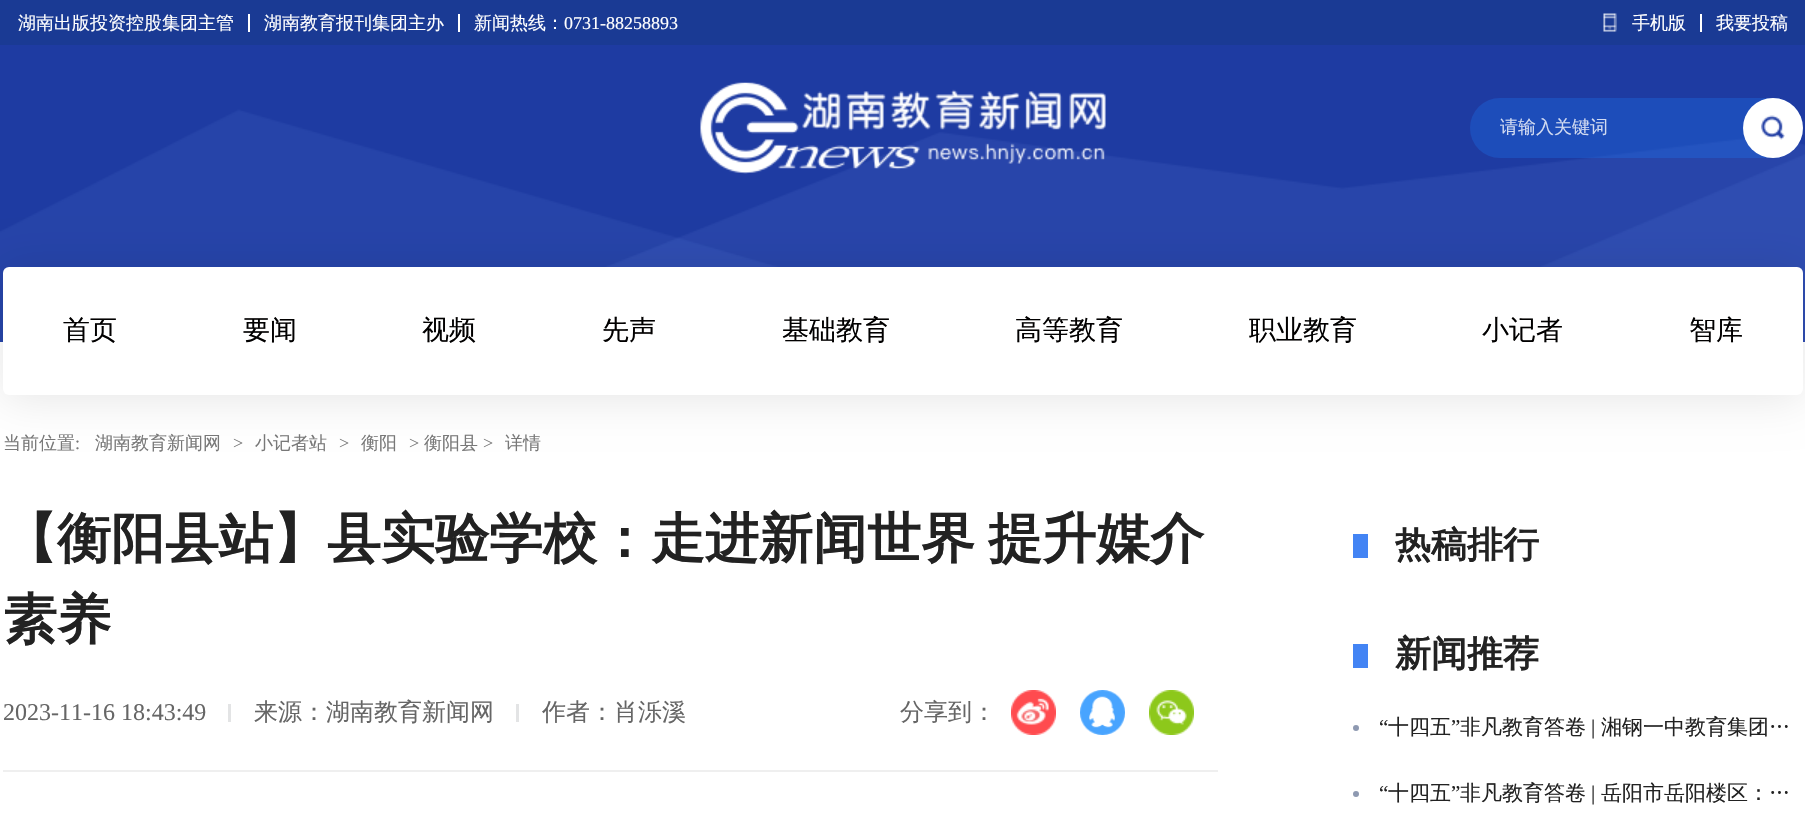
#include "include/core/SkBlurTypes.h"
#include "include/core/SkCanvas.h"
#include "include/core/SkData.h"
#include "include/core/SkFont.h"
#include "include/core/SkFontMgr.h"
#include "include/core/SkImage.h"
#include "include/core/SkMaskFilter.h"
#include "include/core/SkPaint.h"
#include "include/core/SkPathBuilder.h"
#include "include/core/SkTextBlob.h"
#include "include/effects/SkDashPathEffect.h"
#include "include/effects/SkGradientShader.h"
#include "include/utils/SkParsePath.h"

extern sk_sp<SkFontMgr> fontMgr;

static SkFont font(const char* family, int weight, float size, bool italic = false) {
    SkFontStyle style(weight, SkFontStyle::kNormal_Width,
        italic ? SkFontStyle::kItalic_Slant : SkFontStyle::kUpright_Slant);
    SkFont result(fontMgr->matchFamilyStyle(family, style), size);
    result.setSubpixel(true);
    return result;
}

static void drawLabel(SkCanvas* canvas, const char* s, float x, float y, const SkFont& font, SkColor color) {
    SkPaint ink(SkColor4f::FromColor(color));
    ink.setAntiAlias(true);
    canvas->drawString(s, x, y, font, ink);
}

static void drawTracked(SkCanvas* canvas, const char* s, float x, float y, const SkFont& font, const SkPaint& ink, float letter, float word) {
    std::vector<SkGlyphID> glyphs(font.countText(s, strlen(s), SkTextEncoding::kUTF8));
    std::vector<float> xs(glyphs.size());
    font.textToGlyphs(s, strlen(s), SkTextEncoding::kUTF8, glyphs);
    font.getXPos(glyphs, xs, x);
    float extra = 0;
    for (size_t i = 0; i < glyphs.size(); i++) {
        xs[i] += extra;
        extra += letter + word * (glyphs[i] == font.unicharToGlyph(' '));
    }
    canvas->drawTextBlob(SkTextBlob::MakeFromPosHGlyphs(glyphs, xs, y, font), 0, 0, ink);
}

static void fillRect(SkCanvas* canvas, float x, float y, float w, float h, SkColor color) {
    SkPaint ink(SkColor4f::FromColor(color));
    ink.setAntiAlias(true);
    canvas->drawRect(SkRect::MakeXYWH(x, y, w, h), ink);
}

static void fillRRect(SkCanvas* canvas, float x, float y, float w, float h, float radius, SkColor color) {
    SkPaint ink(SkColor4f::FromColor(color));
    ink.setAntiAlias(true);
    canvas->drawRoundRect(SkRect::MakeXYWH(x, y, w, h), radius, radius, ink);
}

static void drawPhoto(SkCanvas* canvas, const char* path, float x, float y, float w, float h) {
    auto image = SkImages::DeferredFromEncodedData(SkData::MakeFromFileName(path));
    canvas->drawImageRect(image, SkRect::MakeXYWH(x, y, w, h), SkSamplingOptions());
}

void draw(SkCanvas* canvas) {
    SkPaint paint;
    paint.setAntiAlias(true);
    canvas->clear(0xFFFFFFFF);
    fillRect(canvas, 0, 0, 1805, 45, 0xFF1A3A94);
    SkFont font1 = font("WenQuanYi Zen Hei", 500, 18);
    drawLabel(canvas, "湖南出版投资控股集团主管", 18, 29, font1, 0xFFFFFFFF);
    fillRect(canvas, 248, 14, 2, 18, 0xFFFFFFFF);
    drawLabel(canvas, "湖南教育报刊集团主办", 264, 29, font1, 0xFFFFFFFF);
    fillRect(canvas, 458, 14, 2, 18, 0xFFFFFFFF);
    drawLabel(canvas, "新闻热线：", 474, 29, font1, 0xFFFFFFFF);
    SkFont font2 = font("Liberation Serif", 400, 18);
    drawLabel(canvas, "0731-88258893", 564, 29, font2, 0xFFFFFFFF);
    drawPhoto(canvas, "assets/img1.png", 1603, 13, 14, 19);
    drawLabel(canvas, "手机版", 1632, 29, font1, 0xFFFFFFFF);
    fillRect(canvas, 1700, 14, 2, 18, 0xFFFFFFFF);
    drawLabel(canvas, "我要投稿", 1716, 29, font1, 0xFFFFFFFF);
    drawPhoto(canvas, "assets/img2.png", 0, 45, 1805, 297);
    drawPhoto(canvas, "assets/img3.png", 700, 82, 406, 92);
    fillRRect(canvas, 1470, 98, 333, 60, 30, 0x471A7BF8);
    paint.setColor(0xFFFFFFFF);
    canvas->drawCircle(1773, 128, 30, paint);
    drawLabel(canvas, "请输入关键词", 1500, 133, font1, 0xFFD2DBF1);
    drawPhoto(canvas, "assets/img4.png", 1761, 115, 24, 25);
    paint.setColor(0x1A000000);
    paint.setMaskFilter(SkMaskFilter::MakeBlur(kNormal_SkBlurStyle, 22.5f));
    canvas->drawRoundRect(SkRect::MakeXYWH(3, 270, 1800, 128), 6, 6, paint);
    paint.setMaskFilter(nullptr);
    fillRRect(canvas, 3, 267, 1800, 128, 6, 0xFFFFFFFF);
    SkFont font3 = font("WenQuanYi Zen Hei", 500, 27);
    drawLabel(canvas, "首页", 63, 339, font3, 0xFF010000);
    drawLabel(canvas, "要闻", 243, 339, font3, 0xFF010000);
    drawLabel(canvas, "视频", 422, 339, font3, 0xFF010000);
    drawLabel(canvas, "先声", 602, 339, font3, 0xFF010000);
    drawLabel(canvas, "基础教育", 782, 339, font3, 0xFF010000);
    drawLabel(canvas, "高等教育", 1015, 339, font3, 0xFF010000);
    drawLabel(canvas, "职业教育", 1249, 339, font3, 0xFF010000);
    drawLabel(canvas, "小记者", 1482, 339, font3, 0xFF010000);
    drawLabel(canvas, "智库", 1689, 339, font3, 0xFF010000);
    drawLabel(canvas, "当前位置", 3, 449, font1, 0xFF787878);
    drawLabel(canvas, ":", 75, 449, font2, 0xFF787878);
    drawLabel(canvas, "湖南教育新闻网", 95, 449, font1, 0xFF787878);
    drawLabel(canvas, ">", 233, 449, font2, 0xFF787878);
    drawLabel(canvas, "小记者站", 255, 449, font1, 0xFF787878);
    drawLabel(canvas, ">", 339, 449, font2, 0xFF787878);
    drawLabel(canvas, "衡阳", 361, 449, font1, 0xFF787878);
    drawLabel(canvas, ">", 409, 449, font2, 0xFF787878);
    drawLabel(canvas, "衡阳县", 424, 449, font1, 0xFF787878);
    drawLabel(canvas, ">", 483, 449, font2, 0xFF787878);
    drawLabel(canvas, "详情", 505, 449, font1, 0xFF787878);
    SkFont font4 = font("WenQuanYi Zen Hei", 700, 54);
    paint.setColor(0xFF222222);
    drawTracked(canvas, "【衡阳县站】县实验学校：走进新闻世界 提升媒介", 3, 557, font4, paint, 0, -3);
    drawLabel(canvas, "素养", 3, 638, font4, 0xFF222222);
    fillRect(canvas, 3, 770, 1215, 2, 0xFFEFEFEF);
    SkFont font5 = font("Liberation Serif", 400, 24);
    drawLabel(canvas, "2023-11-16 18:43:49", 3, 720, font5, 0xFF666666);
    fillRect(canvas, 228, 704, 3, 18, 0xFFE3E4E5);
    SkFont font6 = font("WenQuanYi Zen Hei", 500, 24);
    drawLabel(canvas, "来源：湖南教育新闻网", 254, 720, font6, 0xFF666666);
    fillRect(canvas, 516, 704, 3, 18, 0xFFE3E4E5);
    drawLabel(canvas, "作者：肖泺溪", 542, 720, font6, 0xFF666666);
    drawLabel(canvas, "分享到：", 900, 720, font6, 0xFF666666);
    drawPhoto(canvas, "assets/img5.png", 1011, 690, 45, 45);
    drawPhoto(canvas, "assets/img6.png", 1080, 690, 45, 45);
    drawPhoto(canvas, "assets/img7.png", 1149, 690, 45, 45);
    fillRect(canvas, 1353, 534, 15, 24, 0xFF4384F4);
    SkFont font7 = font("WenQuanYi Zen Hei", 700, 36);
    drawLabel(canvas, "热稿排行", 1395, 557, font7, 0xFF222222);
    fillRect(canvas, 1353, 644, 15, 24, 0xFF4384F4);
    drawLabel(canvas, "新闻推荐", 1395, 666, font7, 0xFF222222);
    paint.setColor(0xFF8E99B1);
    canvas->drawCircle(1356, 728, 3, paint);
    SkFont font8 = font("Liberation Serif", 400, 21);
    drawLabel(canvas, "“", 1379, 734, font8, 0xFF222222);
    SkFont font9 = font("WenQuanYi Zen Hei", 500, 21);
    drawLabel(canvas, "十四五", 1388, 734, font9, 0xFF222222);
    drawLabel(canvas, "”", 1451, 734, font8, 0xFF222222);
    drawLabel(canvas, "非凡教育答卷", 1460, 734, font9, 0xFF222222);
    drawLabel(canvas, "|", 1591, 734, font8, 0xFF222222);
    drawLabel(canvas, "湘钢一中教育集团…", 1601, 734, font9, 0xFF222222);
    canvas->drawCircle(1356, 794, 3, paint);
    drawLabel(canvas, "“", 1379, 800, font8, 0xFF222222);
    drawLabel(canvas, "十四五", 1388, 800, font9, 0xFF222222);
    drawLabel(canvas, "”", 1451, 800, font8, 0xFF222222);
    drawLabel(canvas, "非凡教育答卷", 1460, 800, font9, 0xFF222222);
    drawLabel(canvas, "|", 1591, 800, font8, 0xFF222222);
    drawLabel(canvas, "岳阳市岳阳楼区：…", 1601, 800, font9, 0xFF222222);
}
